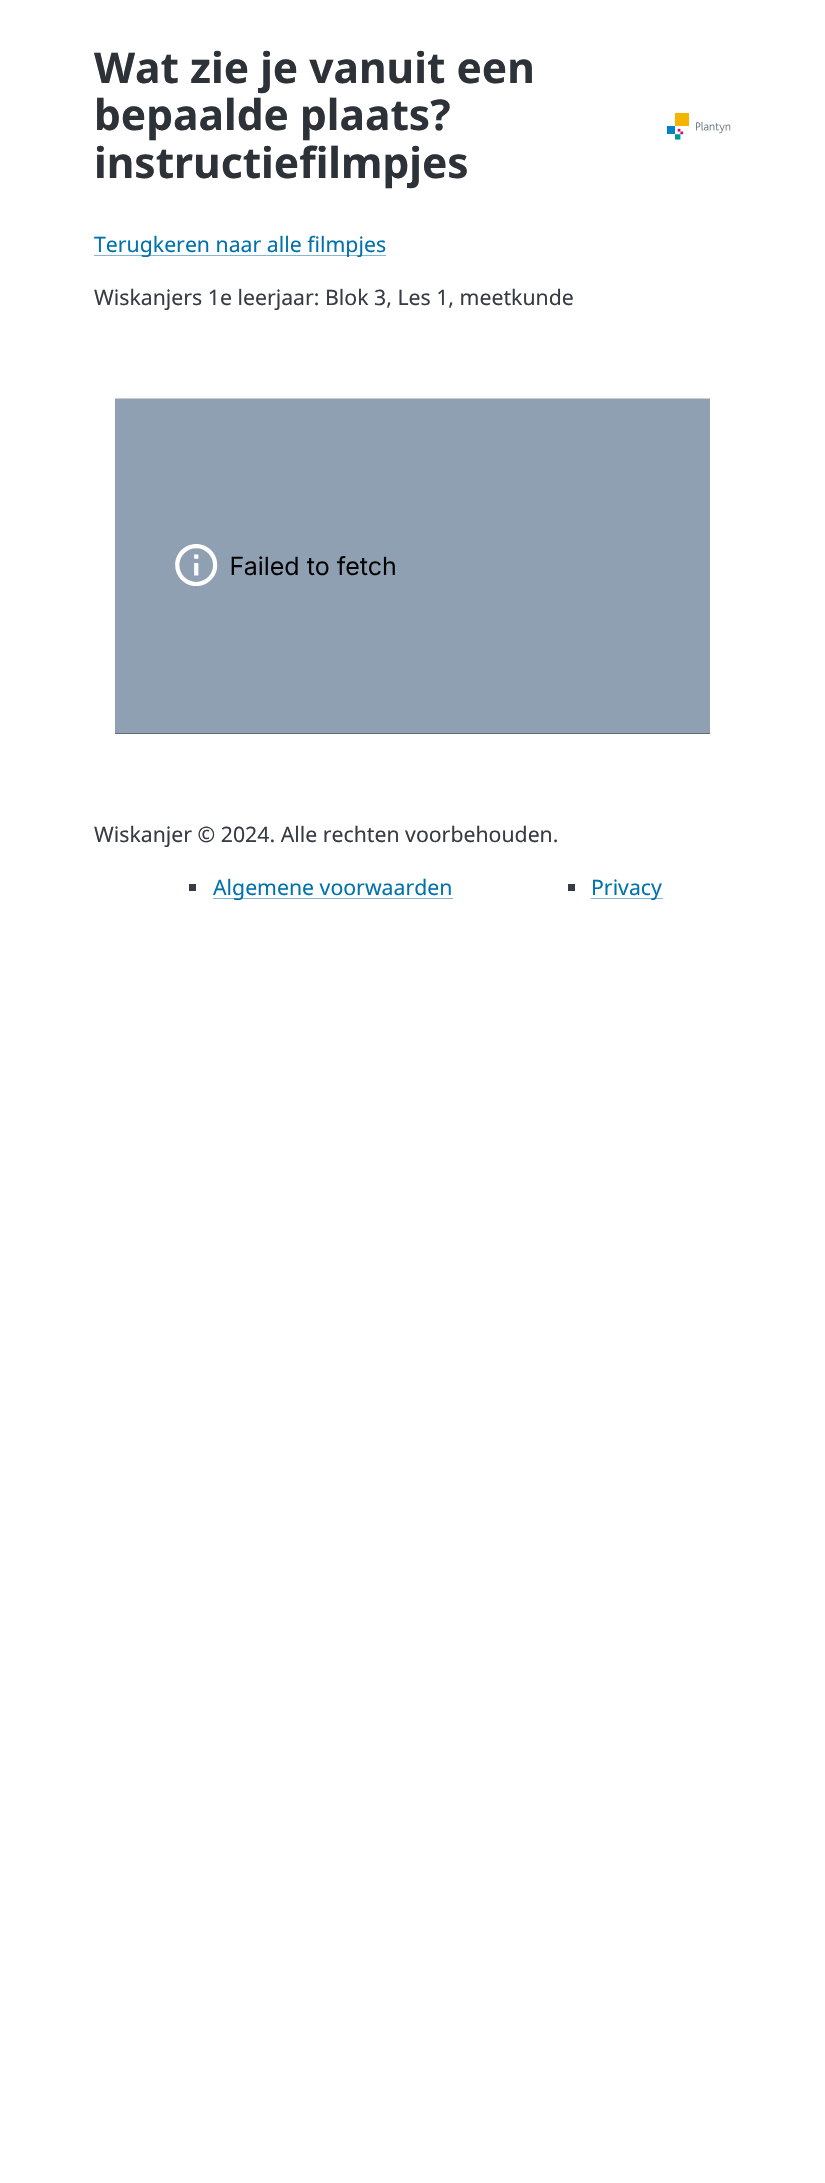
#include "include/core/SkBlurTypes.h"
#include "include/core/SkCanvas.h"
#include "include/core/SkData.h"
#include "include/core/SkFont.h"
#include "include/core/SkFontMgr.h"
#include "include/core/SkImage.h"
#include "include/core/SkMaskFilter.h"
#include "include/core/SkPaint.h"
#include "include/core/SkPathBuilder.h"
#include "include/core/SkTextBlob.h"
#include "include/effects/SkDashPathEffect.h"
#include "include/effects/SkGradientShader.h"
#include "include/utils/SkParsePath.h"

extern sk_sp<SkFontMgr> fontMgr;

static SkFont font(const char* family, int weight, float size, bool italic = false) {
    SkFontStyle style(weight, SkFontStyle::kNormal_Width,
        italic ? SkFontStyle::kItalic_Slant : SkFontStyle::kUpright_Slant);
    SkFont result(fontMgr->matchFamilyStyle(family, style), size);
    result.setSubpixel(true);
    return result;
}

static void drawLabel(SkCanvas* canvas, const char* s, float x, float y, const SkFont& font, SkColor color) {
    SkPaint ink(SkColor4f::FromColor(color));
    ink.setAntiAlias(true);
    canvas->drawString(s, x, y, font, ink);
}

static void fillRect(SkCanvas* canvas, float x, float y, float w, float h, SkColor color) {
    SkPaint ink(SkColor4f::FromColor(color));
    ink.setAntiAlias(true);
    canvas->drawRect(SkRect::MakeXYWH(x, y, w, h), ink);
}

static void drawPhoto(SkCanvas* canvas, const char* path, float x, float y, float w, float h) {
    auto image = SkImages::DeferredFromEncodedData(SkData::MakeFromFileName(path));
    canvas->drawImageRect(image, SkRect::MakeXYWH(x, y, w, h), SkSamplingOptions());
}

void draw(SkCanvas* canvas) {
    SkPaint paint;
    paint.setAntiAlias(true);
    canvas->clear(0xFFFFFFFF);
    SkFont font1 = font("Noto Sans", 700, 42.5f);
    drawLabel(canvas, "Wat zie je vanuit een", 94, 83, font1, 0xFF2D3138);
    drawLabel(canvas, "bepaalde plaats?", 94, 130, font1, 0xFF2D3138);
    drawLabel(canvas, "instructiefilmpjes", 94, 178, font1, 0xFF2D3138);
    drawPhoto(canvas, "assets/img1.png", 667, 113, 64, 27);
    fillRect(canvas, 94, 255, 292, 1, 0xFF80B8D6);
    SkFont font2 = font("Noto Sans", 400, 21.25f);
    drawLabel(canvas, "Terugkeren naar alle filmpjes", 94, 252, font2, 0xFF0172AD);
    drawLabel(canvas, "Wiskanjers 1e leerjaar: Blok 3, Les 1, meetkunde", 94, 305, font2, 0xFF373C44);
    drawPhoto(canvas, "assets/img2.png", 115, 398, 595, 336);
    drawLabel(canvas, "Wiskanjer © 2024. Alle rechten voorbehouden.", 94, 842, font2, 0xFF373C44);
    fillRect(canvas, 189, 884, 7, 7, 0xFF373C44);
    fillRect(canvas, 213, 898, 240, 1, 0xFF80B8D6);
    drawLabel(canvas, "Algemene voorwaarden", 213, 895, font2, 0xFF0172AD);
    fillRect(canvas, 568, 884, 7, 7, 0xFF373C44);
    fillRect(canvas, 591, 898, 72, 1, 0xFF80B8D6);
    drawLabel(canvas, "Privacy", 591, 895, font2, 0xFF0172AD);
}
